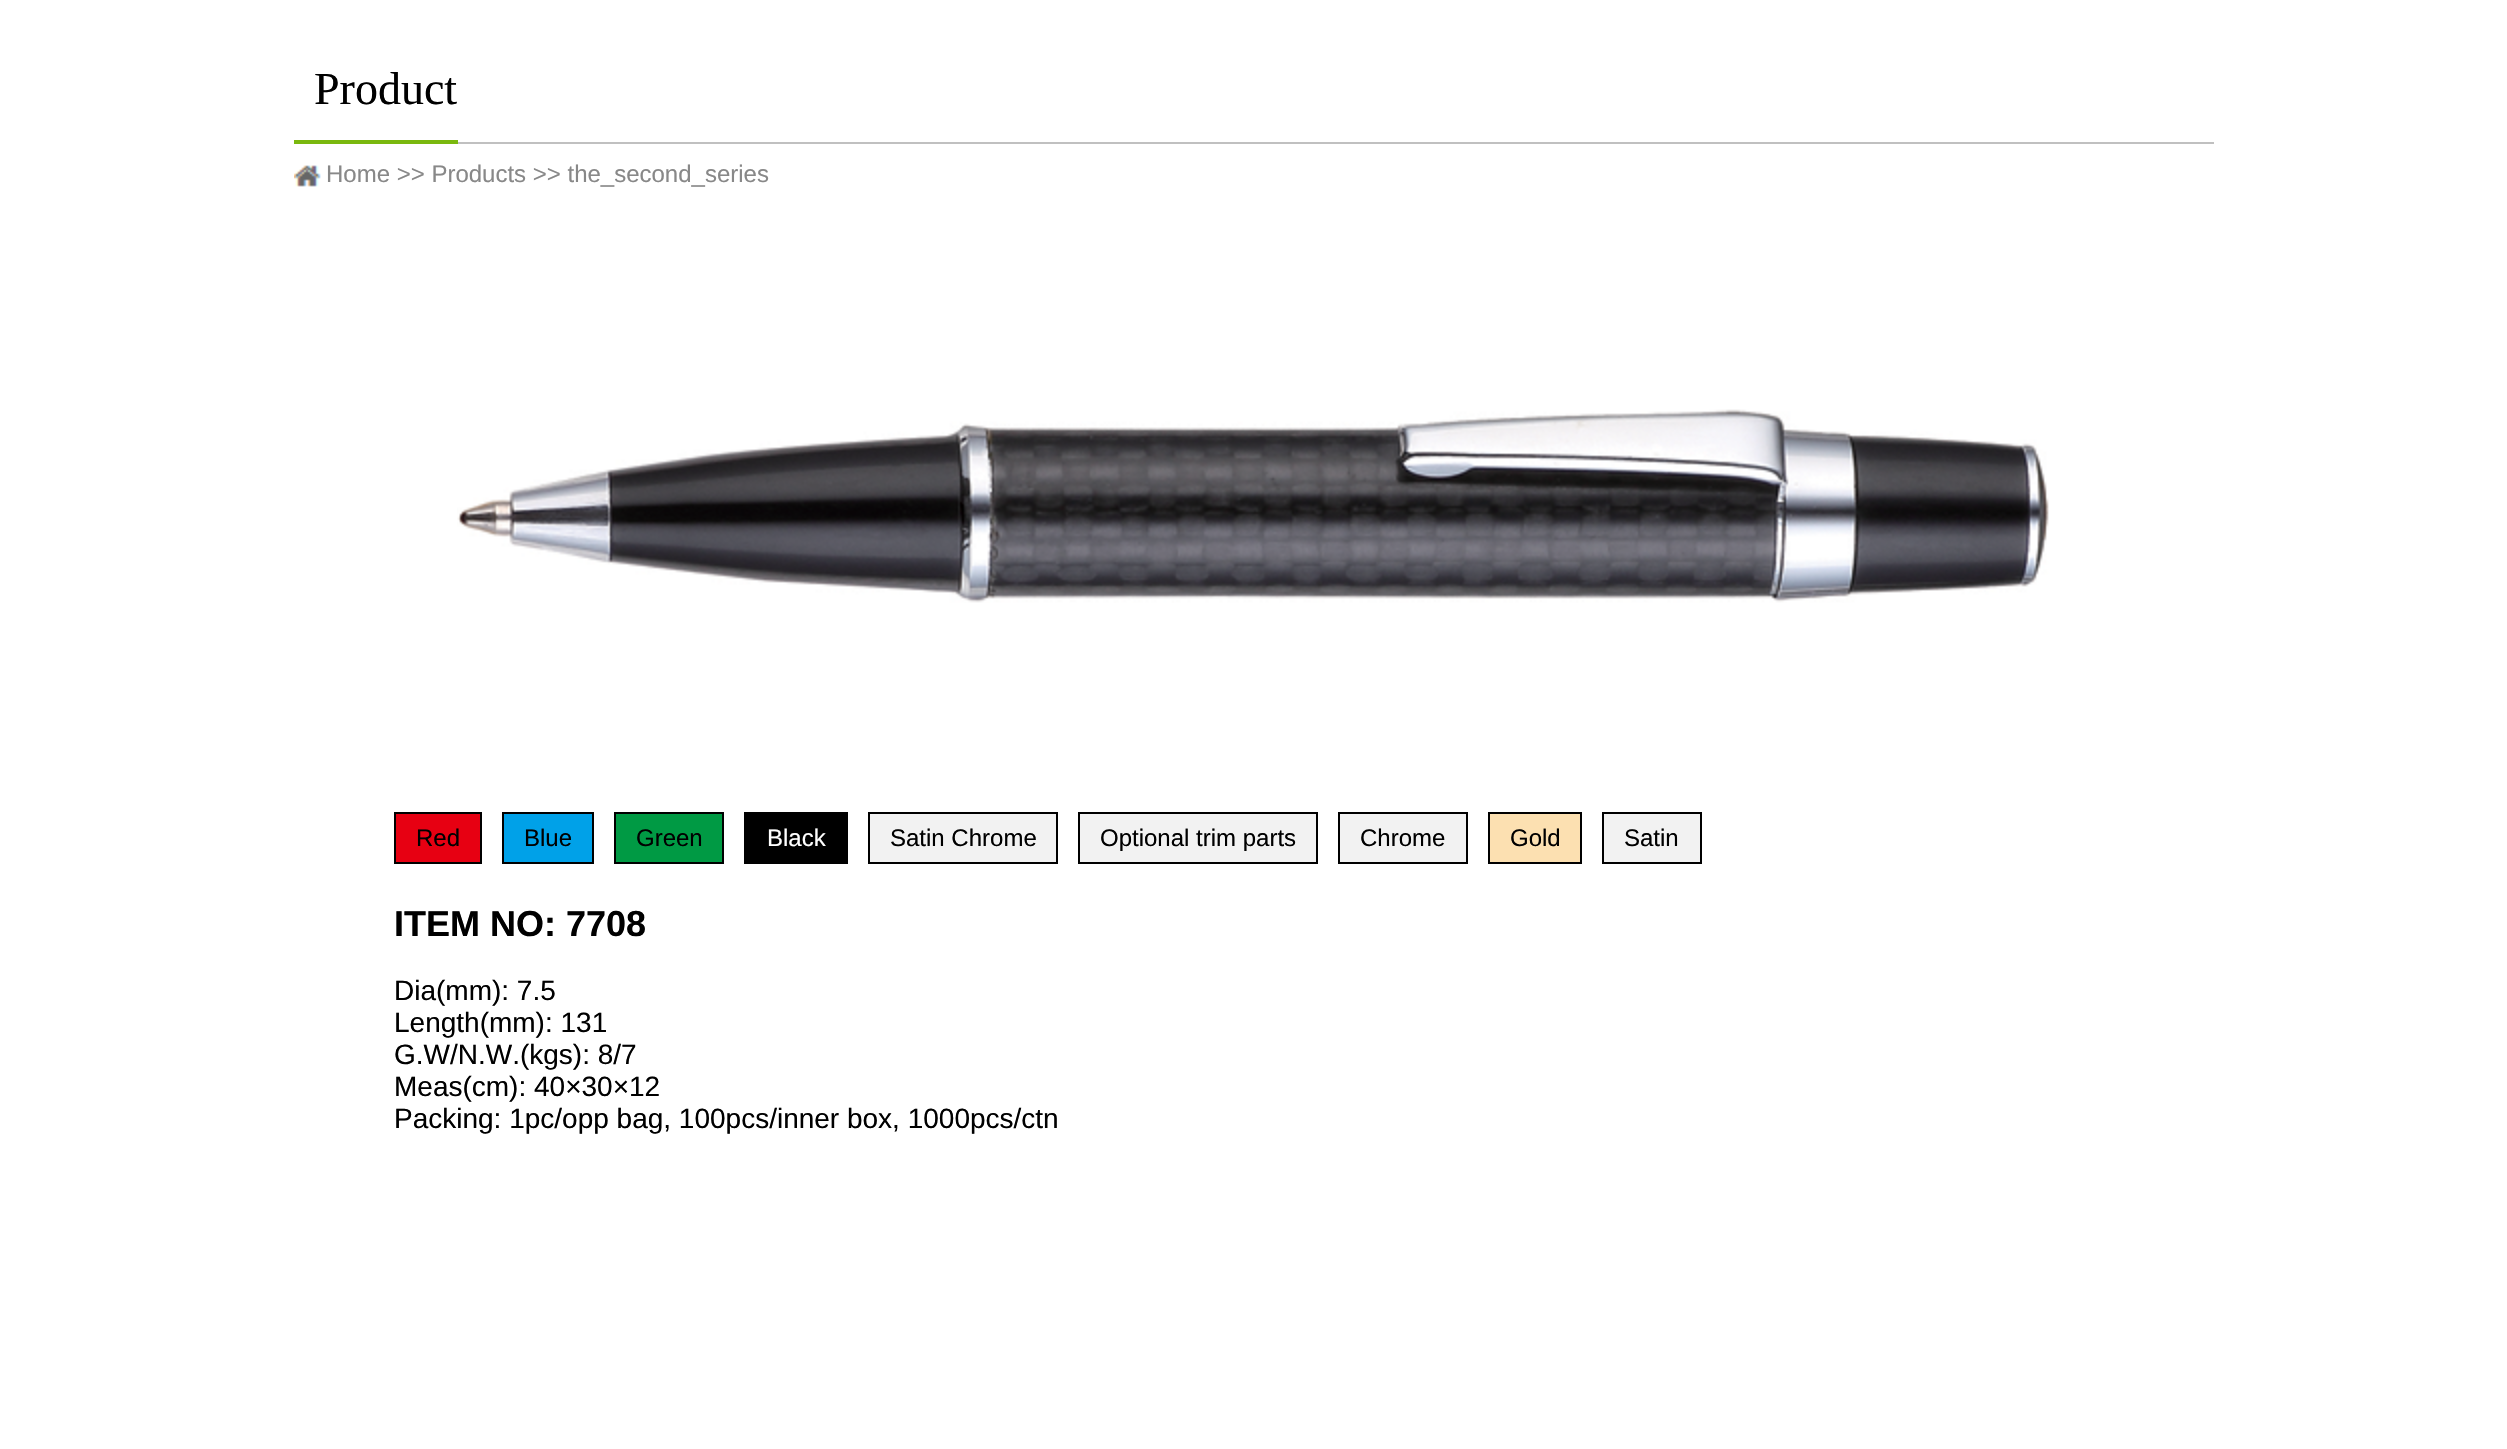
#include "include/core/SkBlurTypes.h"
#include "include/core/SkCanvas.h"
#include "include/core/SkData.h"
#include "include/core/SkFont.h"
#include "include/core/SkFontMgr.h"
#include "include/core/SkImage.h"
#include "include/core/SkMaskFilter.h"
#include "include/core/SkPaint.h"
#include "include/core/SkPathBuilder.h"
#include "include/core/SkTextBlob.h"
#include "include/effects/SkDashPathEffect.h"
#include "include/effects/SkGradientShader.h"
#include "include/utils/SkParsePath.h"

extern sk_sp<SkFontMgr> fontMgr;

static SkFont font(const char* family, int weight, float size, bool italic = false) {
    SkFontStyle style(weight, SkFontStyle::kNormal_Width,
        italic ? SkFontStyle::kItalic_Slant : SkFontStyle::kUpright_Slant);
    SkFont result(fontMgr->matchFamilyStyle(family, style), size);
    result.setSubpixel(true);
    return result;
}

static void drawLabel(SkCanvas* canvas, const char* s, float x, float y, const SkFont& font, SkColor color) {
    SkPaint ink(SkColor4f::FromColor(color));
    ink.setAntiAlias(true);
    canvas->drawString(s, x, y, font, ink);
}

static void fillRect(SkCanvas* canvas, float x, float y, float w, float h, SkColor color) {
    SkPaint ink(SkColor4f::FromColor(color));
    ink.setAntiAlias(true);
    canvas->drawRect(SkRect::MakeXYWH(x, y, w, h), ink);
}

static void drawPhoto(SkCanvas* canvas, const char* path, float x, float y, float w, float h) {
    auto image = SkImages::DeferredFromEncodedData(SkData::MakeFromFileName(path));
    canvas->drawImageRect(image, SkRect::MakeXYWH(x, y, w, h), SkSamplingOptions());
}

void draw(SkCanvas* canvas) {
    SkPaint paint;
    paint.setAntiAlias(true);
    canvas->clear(0xFFFFFFFF);
    fillRect(canvas, 458, 142, 1756, 2, 0xFFC0C0C0);
    fillRect(canvas, 294, 140, 164, 4, 0xFF7AB80E);
    SkFont font1 = font("Liberation Serif", 400, 46);
    drawLabel(canvas, "Product", 314, 104, font1, 0xFF000000);
    drawPhoto(canvas, "assets/img1.png", 294, 165, 27, 22);
    SkFont font2 = font("Liberation Sans", 400, 24);
    drawLabel(canvas, "Home >> Products >> the_second_series", 326, 182, font2, 0xFF888888);
    drawPhoto(canvas, "assets/img2.png", 457, 409, 1592, 194);
    paint.setColor(0xFFE70012);
    canvas->drawRect(SkRect::MakeXYWH(395, 813, 86, 50), paint);
    paint.setStroke(true);
    paint.setStrokeWidth(2);
    paint.setColor(0xFF000000);
    canvas->drawRect(SkRect::MakeXYWH(395, 813, 86, 50), paint);
    drawLabel(canvas, "Red", 416, 846, font2, 0xFF000000);
    paint.setStroke(false);
    paint.setColor(0xFF00A1E8);
    canvas->drawRect(SkRect::MakeXYWH(503, 813, 90, 50), paint);
    paint.setStroke(true);
    paint.setColor(0xFF000000);
    canvas->drawRect(SkRect::MakeXYWH(503, 813, 90, 50), paint);
    drawLabel(canvas, "Blue", 524, 846, font2, 0xFF000000);
    paint.setStroke(false);
    paint.setColor(0xFF009A44);
    canvas->drawRect(SkRect::MakeXYWH(615, 813, 108, 50), paint);
    paint.setStroke(true);
    paint.setColor(0xFF000000);
    canvas->drawRect(SkRect::MakeXYWH(615, 813, 108, 50), paint);
    drawLabel(canvas, "Green", 636, 846, font2, 0xFF000000);
    fillRect(canvas, 744, 812, 104, 52, 0xFF000000);
    drawLabel(canvas, "Black", 767, 846, font2, 0xFFFFFFFF);
    paint.setStroke(false);
    paint.setColor(0xFFF2F2F2);
    canvas->drawRect(SkRect::MakeXYWH(869, 813, 188, 50), paint);
    paint.setStroke(true);
    paint.setColor(0xFF000000);
    canvas->drawRect(SkRect::MakeXYWH(869, 813, 188, 50), paint);
    drawLabel(canvas, "Satin Chrome", 890, 846, font2, 0xFF000000);
    paint.setStroke(false);
    paint.setColor(0xFFF2F2F2);
    canvas->drawRect(SkRect::MakeXYWH(1079, 813, 238, 50), paint);
    paint.setStroke(true);
    paint.setColor(0xFF000000);
    canvas->drawRect(SkRect::MakeXYWH(1079, 813, 238, 50), paint);
    drawLabel(canvas, "Optional trim parts", 1100, 846, font2, 0xFF000000);
    paint.setStroke(false);
    paint.setColor(0xFFF2F2F2);
    canvas->drawRect(SkRect::MakeXYWH(1339, 813, 128, 50), paint);
    paint.setStroke(true);
    paint.setColor(0xFF000000);
    canvas->drawRect(SkRect::MakeXYWH(1339, 813, 128, 50), paint);
    drawLabel(canvas, "Chrome", 1360, 846, font2, 0xFF000000);
    paint.setStroke(false);
    paint.setColor(0xFFFCE0B1);
    canvas->drawRect(SkRect::MakeXYWH(1489, 813, 92, 50), paint);
    paint.setStroke(true);
    paint.setColor(0xFF000000);
    canvas->drawRect(SkRect::MakeXYWH(1489, 813, 92, 50), paint);
    drawLabel(canvas, "Gold", 1510, 846, font2, 0xFF000000);
    paint.setStroke(false);
    paint.setColor(0xFFF2F2F2);
    canvas->drawRect(SkRect::MakeXYWH(1603, 813, 98, 50), paint);
    paint.setStroke(true);
    paint.setColor(0xFF000000);
    canvas->drawRect(SkRect::MakeXYWH(1603, 813, 98, 50), paint);
    drawLabel(canvas, "Satin", 1624, 846, font2, 0xFF000000);
    SkFont font3 = font("Liberation Sans", 700, 36);
    drawLabel(canvas, "ITEM NO: 7708", 394, 936, font3, 0xFF000000);
    SkFont font4 = font("Liberation Sans", 400, 28);
    drawLabel(canvas, "Dia(mm): 7.5", 394, 1000, font4, 0xFF000000);
    drawLabel(canvas, "Length(mm): 131", 394, 1032, font4, 0xFF000000);
    drawLabel(canvas, "G.W/N.W.(kgs): 8/7", 394, 1064, font4, 0xFF000000);
    drawLabel(canvas, "Meas(cm): 40×30×12", 394, 1096, font4, 0xFF000000);
    drawLabel(canvas, "Packing: 1pc/opp bag, 100pcs/inner box, 1000pcs/ctn", 394, 1128, font4, 0xFF000000);
}
